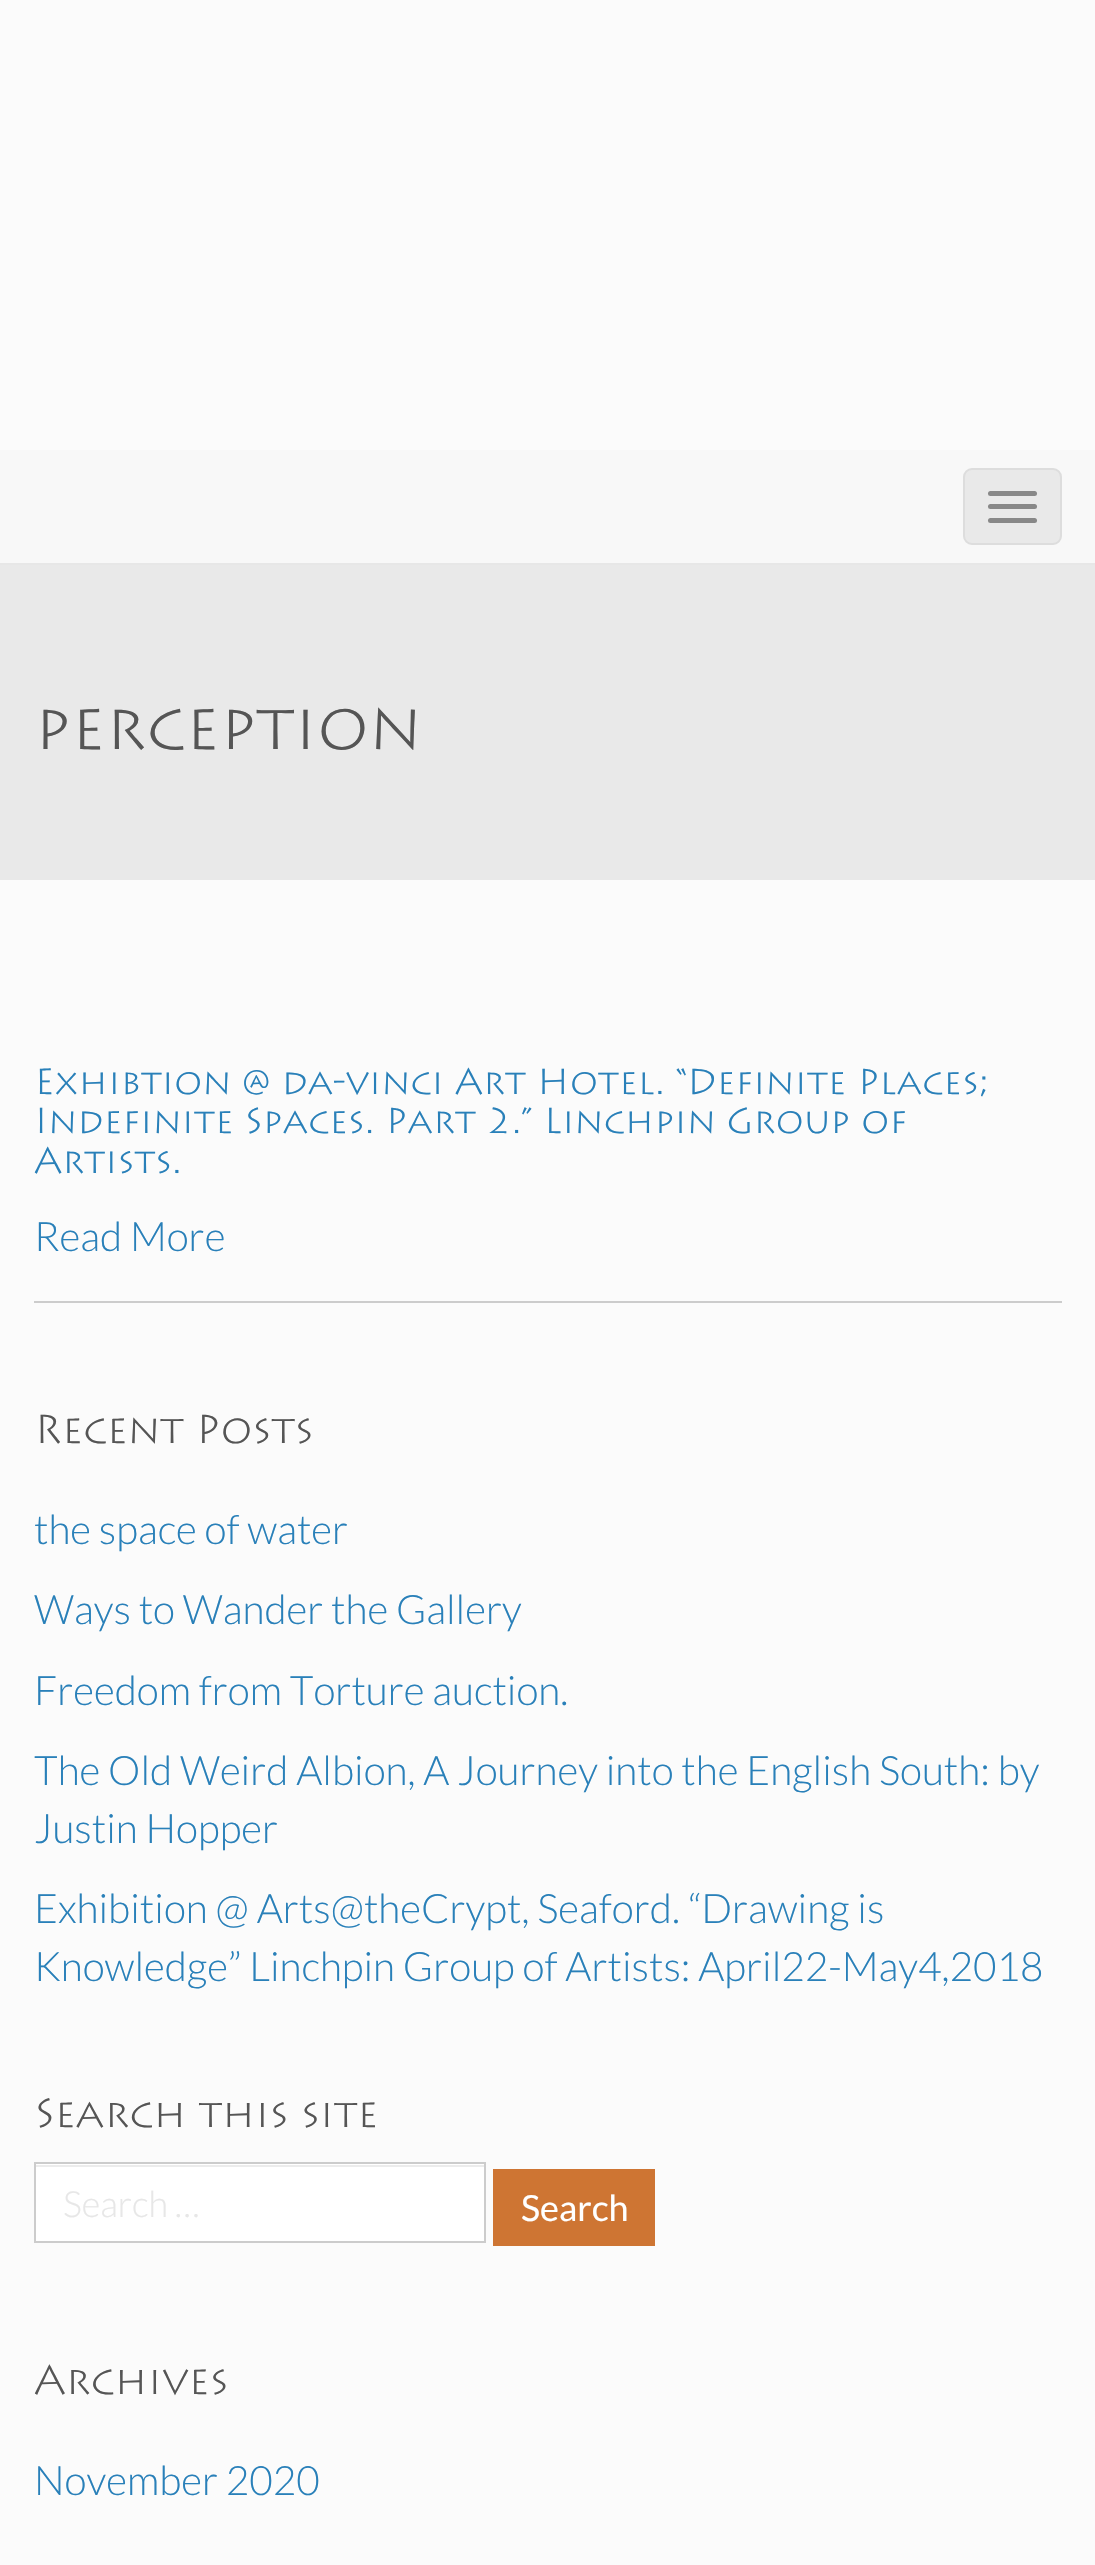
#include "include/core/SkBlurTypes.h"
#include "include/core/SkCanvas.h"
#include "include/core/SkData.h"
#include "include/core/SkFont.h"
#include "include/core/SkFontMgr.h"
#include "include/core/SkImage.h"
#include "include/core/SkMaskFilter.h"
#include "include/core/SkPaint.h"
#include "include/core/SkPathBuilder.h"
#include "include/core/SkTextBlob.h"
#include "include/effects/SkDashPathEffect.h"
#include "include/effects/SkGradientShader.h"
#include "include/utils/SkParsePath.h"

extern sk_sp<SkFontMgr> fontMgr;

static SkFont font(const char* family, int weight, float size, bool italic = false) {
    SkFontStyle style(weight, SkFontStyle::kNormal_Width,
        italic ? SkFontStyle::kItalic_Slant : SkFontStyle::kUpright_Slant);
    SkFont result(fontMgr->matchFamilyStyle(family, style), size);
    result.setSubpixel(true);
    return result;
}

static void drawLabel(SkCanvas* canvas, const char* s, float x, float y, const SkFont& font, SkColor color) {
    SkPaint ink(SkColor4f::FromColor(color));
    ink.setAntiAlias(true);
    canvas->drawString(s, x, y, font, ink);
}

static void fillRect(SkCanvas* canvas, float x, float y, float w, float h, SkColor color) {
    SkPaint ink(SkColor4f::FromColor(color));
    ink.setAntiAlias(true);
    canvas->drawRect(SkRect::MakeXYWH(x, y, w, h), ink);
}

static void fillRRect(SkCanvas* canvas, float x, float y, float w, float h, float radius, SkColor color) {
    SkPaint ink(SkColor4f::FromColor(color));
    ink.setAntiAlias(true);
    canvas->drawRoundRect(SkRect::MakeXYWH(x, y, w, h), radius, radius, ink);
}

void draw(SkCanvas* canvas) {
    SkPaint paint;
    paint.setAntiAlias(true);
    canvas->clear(0xFFFBFBFB);
    fillRect(canvas, 0, 450, 1095, 113, 0xFFF8F8F8);
    fillRect(canvas, 0, 563, 1095, 2, 0xFFE7E7E7);
    paint.setColor(0xFFE9E9E9);
    canvas->drawRoundRect(SkRect::MakeXYWH(964, 469, 97, 75), 8, 8, paint);
    paint.setStroke(true);
    paint.setStrokeWidth(2);
    paint.setColor(0xFFDDDDDD);
    canvas->drawRoundRect(SkRect::MakeXYWH(964, 469, 97, 75), 8, 8, paint);
    fillRRect(canvas, 988, 491, 49, 5, 2.5f, 0xFF888888);
    fillRRect(canvas, 988, 504, 49, 5, 2.5f, 0xFF888888);
    fillRRect(canvas, 988, 518, 49, 5, 2.5f, 0xFF888888);
    fillRect(canvas, 0, 565, 1095, 315, 0xFFE9E9E9);
    SkFont font1 = font("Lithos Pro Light", 300, 66);
    drawLabel(canvas, "perception", 34, 749, font1, 0xFF555555);
    SkFont font2 = font("Lithos Pro Light", 300, 36);
    drawLabel(canvas, "Exhibtion @ da-vinci Art Hotel. “Definite Places;", 34, 1094, font2, 0xFF2980B9);
    drawLabel(canvas, "Indefinite Spaces. Part 2.” Linchpin Group of", 34, 1133, font2, 0xFF2980B9);
    drawLabel(canvas, "Artists.", 34, 1173, font2, 0xFF2980B9);
    SkFont font3 = font("Lato", 300, 40.5f);
    drawLabel(canvas, "Read More", 34, 1251, font3, 0xFF2980B9);
    fillRect(canvas, 34, 1301, 1028, 2, 0xFFCCCCCC);
    SkFont font4 = font("Lithos Pro Light", 300, 40.5f);
    drawLabel(canvas, "Recent Posts", 34, 1443, font4, 0xFF555555);
    drawLabel(canvas, "the space of water", 34, 1544, font3, 0xFF2980B9);
    drawLabel(canvas, "Ways to Wander the Gallery", 34, 1624, font3, 0xFF2980B9);
    drawLabel(canvas, "Freedom from Torture auction.", 34, 1705, font3, 0xFF2980B9);
    drawLabel(canvas, "The Old Weird Albion, A Journey into the English South: by", 34, 1785, font3, 0xFF2980B9);
    drawLabel(canvas, "Justin Hopper", 34, 1843, font3, 0xFF2980B9);
    drawLabel(canvas, "Exhibition @ Arts@theCrypt, Seaford. “Drawing is", 34, 1923, font3, 0xFF2980B9);
    drawLabel(canvas, "Knowledge” Linchpin Group of Artists: April22-May4,2018", 34, 1981, font3, 0xFF2980B9);
    drawLabel(canvas, "Search this site", 34, 2127, font4, 0xFF555555);
    fillRect(canvas, 36, 2164, 448, 77, 0xFFFFFFFF);
    fillRect(canvas, 36, 2165, 448, 2, 0xFFECECEC);
    paint.setColor(0xFFCCCCCC);
    canvas->drawRect(SkRect::MakeXYWH(35, 2163, 450, 79), paint);
    SkFont font5 = font("Lato", 300, 36);
    drawLabel(canvas, "Search …", 63, 2217, font5, 0xFFE7E7E7);
    fillRect(canvas, 493, 2169, 162, 77, 0xFFCE7533);
    SkFont font6 = font("Lato", 400, 36);
    drawLabel(canvas, "Search", 521, 2221, font6, 0xFFFFFFFF);
    drawLabel(canvas, "Archives", 34, 2394, font4, 0xFF555555);
    drawLabel(canvas, "November 2020", 34, 2495, font3, 0xFF2980B9);
}
